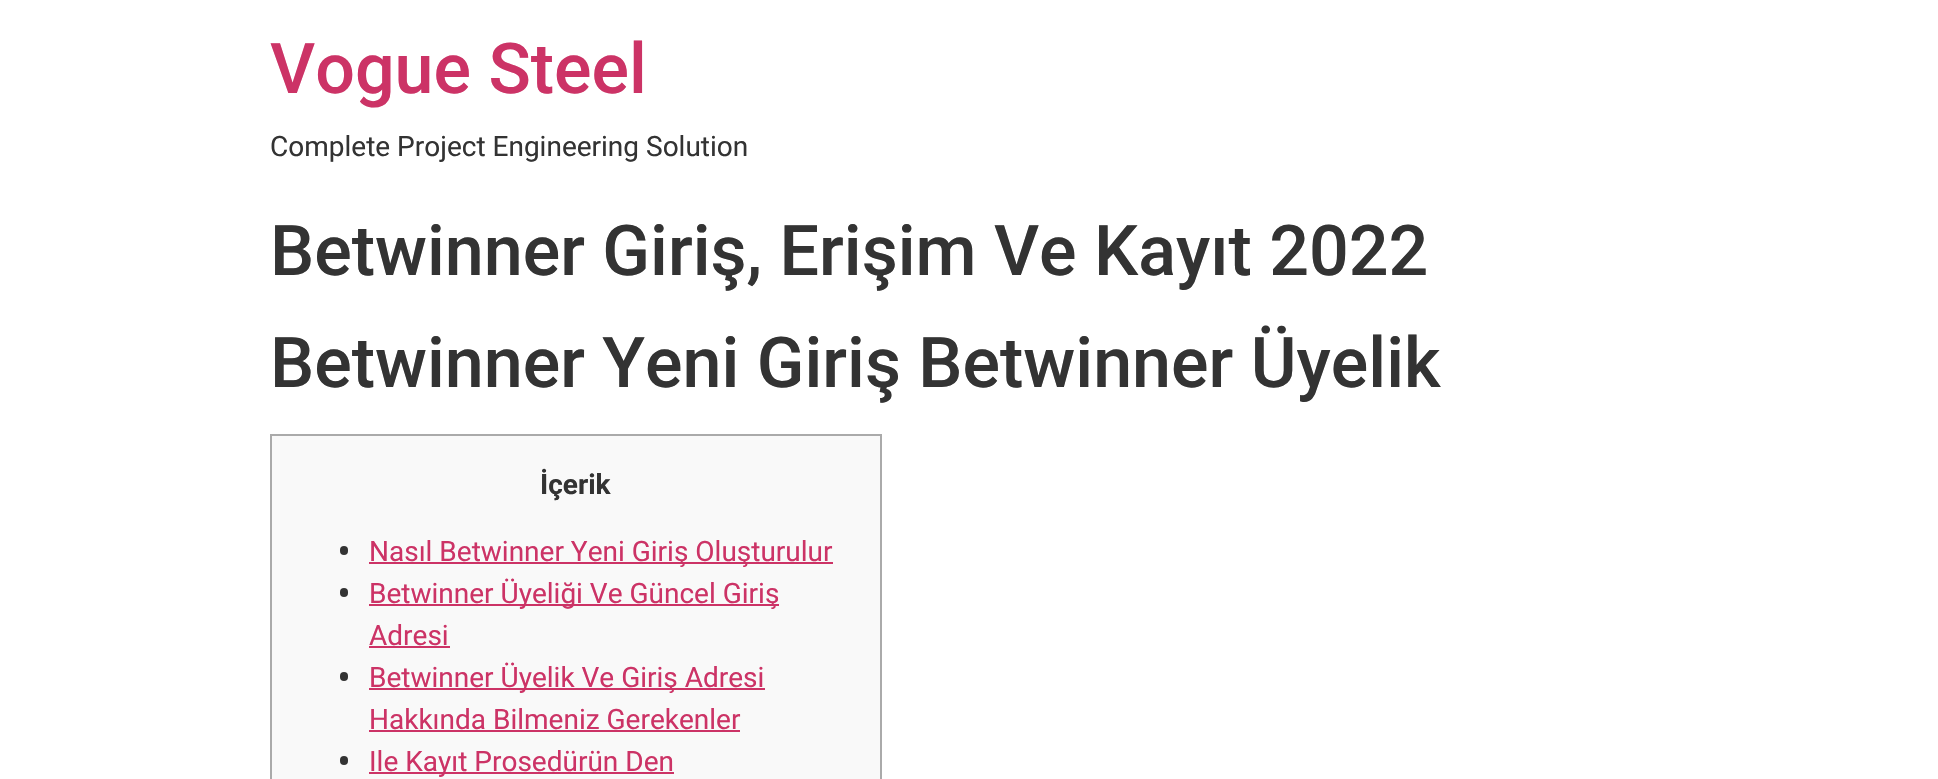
#include "include/core/SkBlurTypes.h"
#include "include/core/SkCanvas.h"
#include "include/core/SkData.h"
#include "include/core/SkFont.h"
#include "include/core/SkFontMgr.h"
#include "include/core/SkImage.h"
#include "include/core/SkMaskFilter.h"
#include "include/core/SkPaint.h"
#include "include/core/SkPathBuilder.h"
#include "include/core/SkTextBlob.h"
#include "include/effects/SkDashPathEffect.h"
#include "include/effects/SkGradientShader.h"
#include "include/utils/SkParsePath.h"

extern sk_sp<SkFontMgr> fontMgr;

static SkFont font(const char* family, int weight, float size, bool italic = false) {
    SkFontStyle style(weight, SkFontStyle::kNormal_Width,
        italic ? SkFontStyle::kItalic_Slant : SkFontStyle::kUpright_Slant);
    SkFont result(fontMgr->matchFamilyStyle(family, style), size);
    result.setSubpixel(true);
    return result;
}

static void drawLabel(SkCanvas* canvas, const char* s, float x, float y, const SkFont& font, SkColor color) {
    SkPaint ink(SkColor4f::FromColor(color));
    ink.setAntiAlias(true);
    canvas->drawString(s, x, y, font, ink);
}

static void fillRect(SkCanvas* canvas, float x, float y, float w, float h, SkColor color) {
    SkPaint ink(SkColor4f::FromColor(color));
    ink.setAntiAlias(true);
    canvas->drawRect(SkRect::MakeXYWH(x, y, w, h), ink);
}

static void fillRRect(SkCanvas* canvas, float x, float y, float w, float h, float radius, SkColor color) {
    SkPaint ink(SkColor4f::FromColor(color));
    ink.setAntiAlias(true);
    canvas->drawRoundRect(SkRect::MakeXYWH(x, y, w, h), radius, radius, ink);
}

void draw(SkCanvas* canvas) {
    SkPaint paint;
    paint.setAntiAlias(true);
    canvas->clear(0xFFFFFFFF);
    SkFont font1 = font("Roboto", 500, 70);
    drawLabel(canvas, "Vogue Steel", 270, 93, font1, 0xFFCC3366);
    SkFont font2 = font("Roboto", 400, 28);
    drawLabel(canvas, "Complete Project Engineering Solution", 270, 156, font2, 0xFF333333);
    drawLabel(canvas, "Betwinner Giriş, Erişim Ve Kayıt 2022", 270, 275, font1, 0xFF333333);
    drawLabel(canvas, "Betwinner Yeni Giriş Betwinner Üyelik", 270, 387, font1, 0xFF333333);
    paint.setColor(0xFFF9F9F9);
    canvas->drawRect(SkRect::MakeXYWH(271, 435, 610, 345), paint);
    paint.setStroke(true);
    paint.setStrokeWidth(2);
    paint.setColor(0xFFAAAAAA);
    canvas->drawRect(SkRect::MakeXYWH(271, 435, 610, 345), paint);
    SkFont font3 = font("Roboto", 700, 28);
    drawLabel(canvas, "İçerik", 540, 494, font3, 0xFF333333);
    fillRRect(canvas, 340, 546, 8, 9, 4, 0xFF333333);
    fillRect(canvas, 369, 562, 464, 2, 0xFFCC3366);
    drawLabel(canvas, "Nasıl Betwinner Yeni Giriş Oluşturulur", 369, 561, font2, 0xFFCC3366);
    fillRRect(canvas, 340, 588, 8, 9, 4, 0xFF333333);
    fillRect(canvas, 369, 604, 410, 2, 0xFFCC3366);
    drawLabel(canvas, "Betwinner Üyeliği Ve Güncel Giriş", 369, 603, font2, 0xFFCC3366);
    drawLabel(canvas, "Adresi", 369, 645, font2, 0xFFCC3366);
    fillRect(canvas, 369, 646, 81, 2, 0xFFCC3366);
    fillRRect(canvas, 340, 672, 8, 9, 4, 0xFF333333);
    fillRect(canvas, 369, 688, 396, 2, 0xFFCC3366);
    drawLabel(canvas, "Betwinner Üyelik Ve Giriş Adresi", 369, 687, font2, 0xFFCC3366);
    drawLabel(canvas, "Hakkında Bilmeniz Gerekenler", 369, 729, font2, 0xFFCC3366);
    fillRect(canvas, 369, 730, 371, 2, 0xFFCC3366);
    fillRRect(canvas, 340, 756, 8, 9, 4, 0xFF333333);
    fillRect(canvas, 369, 772, 305, 2, 0xFFCC3366);
    drawLabel(canvas, "Ile Kayıt Prosedürün Den", 369, 771, font2, 0xFFCC3366);
}
